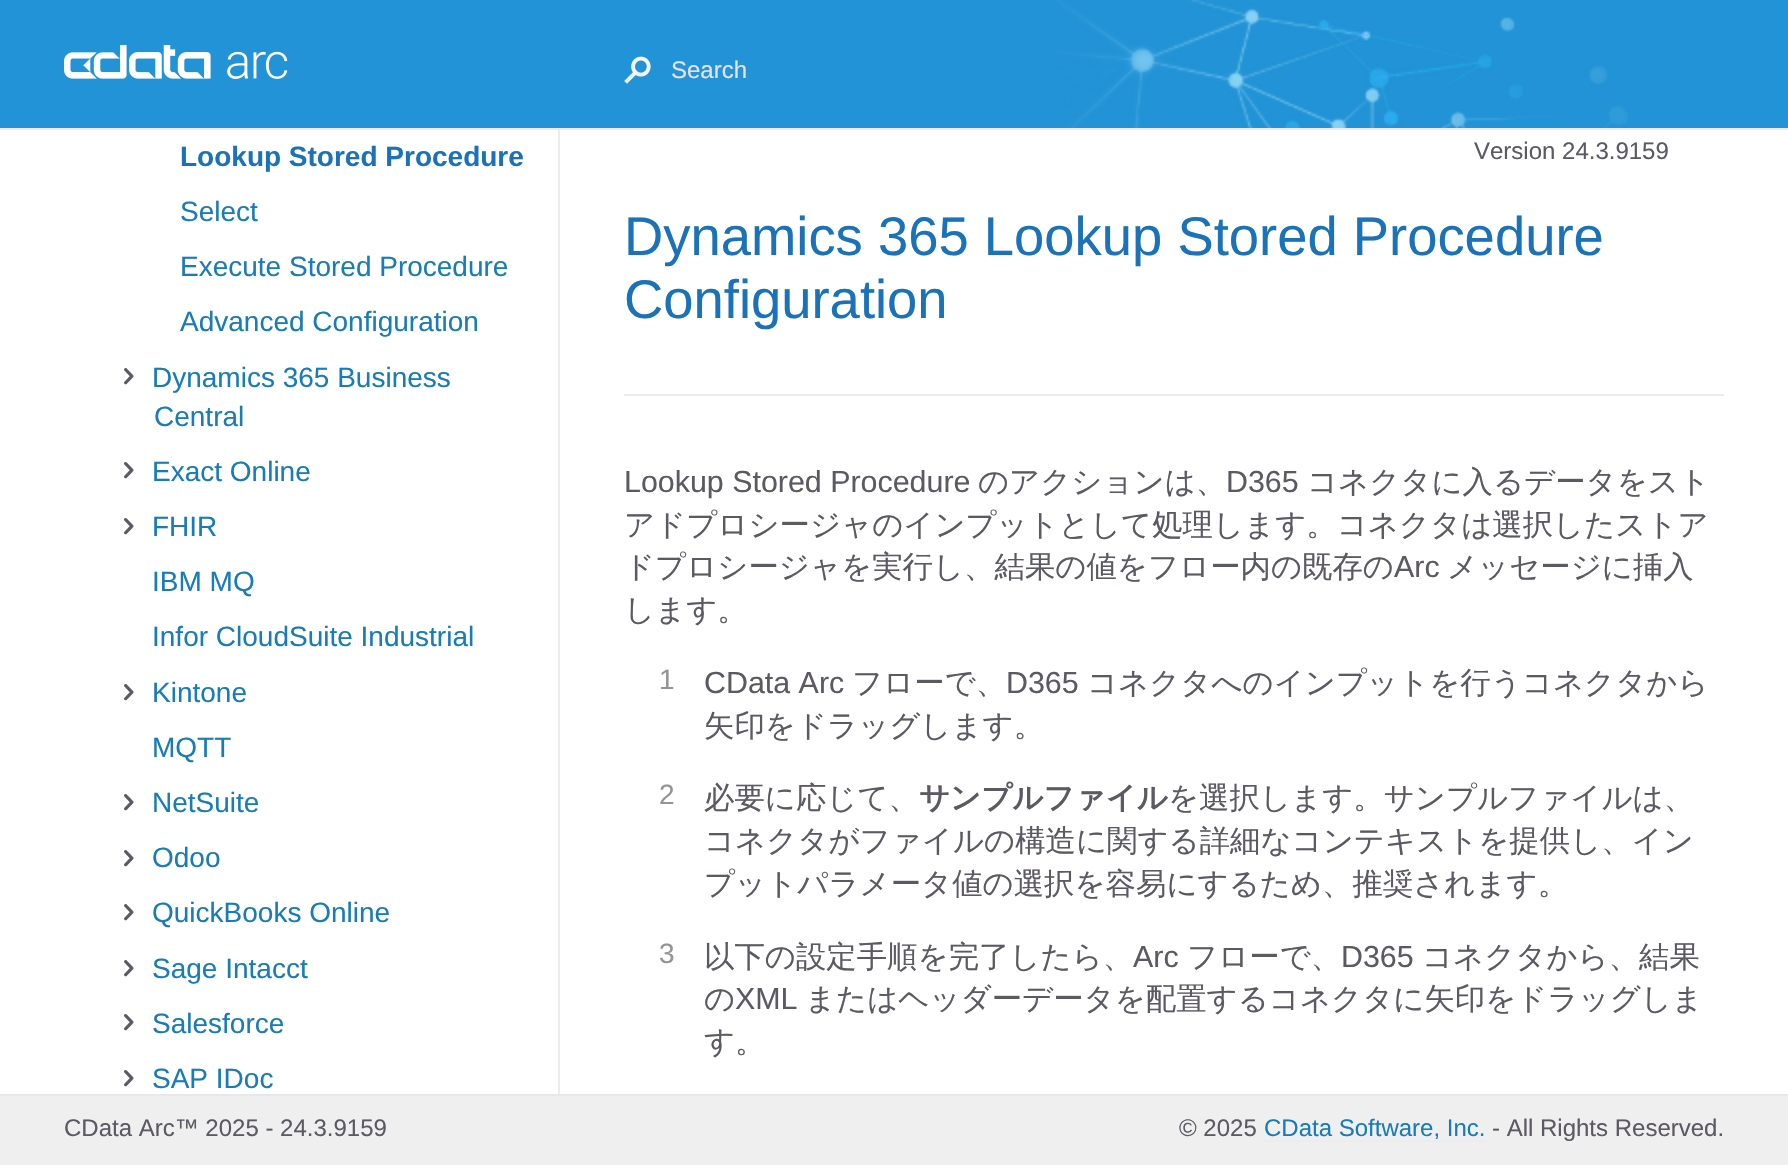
#include "include/core/SkBlurTypes.h"
#include "include/core/SkCanvas.h"
#include "include/core/SkData.h"
#include "include/core/SkFont.h"
#include "include/core/SkFontMgr.h"
#include "include/core/SkImage.h"
#include "include/core/SkMaskFilter.h"
#include "include/core/SkPaint.h"
#include "include/core/SkPathBuilder.h"
#include "include/core/SkTextBlob.h"
#include "include/effects/SkDashPathEffect.h"
#include "include/effects/SkGradientShader.h"
#include "include/utils/SkParsePath.h"

extern sk_sp<SkFontMgr> fontMgr;

static SkFont font(const char* family, int weight, float size, bool italic = false) {
    SkFontStyle style(weight, SkFontStyle::kNormal_Width,
        italic ? SkFontStyle::kItalic_Slant : SkFontStyle::kUpright_Slant);
    SkFont result(fontMgr->matchFamilyStyle(family, style), size);
    result.setSubpixel(true);
    return result;
}

static void drawLabel(SkCanvas* canvas, const char* s, float x, float y, const SkFont& font, SkColor color) {
    SkPaint ink(SkColor4f::FromColor(color));
    ink.setAntiAlias(true);
    canvas->drawString(s, x, y, font, ink);
}

static void fillRect(SkCanvas* canvas, float x, float y, float w, float h, SkColor color) {
    SkPaint ink(SkColor4f::FromColor(color));
    ink.setAntiAlias(true);
    canvas->drawRect(SkRect::MakeXYWH(x, y, w, h), ink);
}

static void drawPhoto(SkCanvas* canvas, const char* path, float x, float y, float w, float h) {
    auto image = SkImages::DeferredFromEncodedData(SkData::MakeFromFileName(path));
    canvas->drawImageRect(image, SkRect::MakeXYWH(x, y, w, h), SkSamplingOptions());
}

void draw(SkCanvas* canvas) {
    SkPaint paint;
    paint.setAntiAlias(true);
    canvas->clear(0xFFFFFFFF);
    fillRect(canvas, 0, 128, 1788, 2, 0xFFEEEBEE);
    fillRect(canvas, 0, 0, 1788, 128, 0xFF2193D6);
    drawPhoto(canvas, "assets/img1.png", 64, 45, 224, 34);
    fillRect(canvas, 558, 130, 2, 964, 0xFFEEEBEE);
    SkFont font1 = font("Liberation Sans", 700, 28);
    drawLabel(canvas, "Lookup Stored Procedure", 180, 166, font1, 0xFF1A72B9);
    SkFont font2 = font("Liberation Sans", 400, 28);
    drawLabel(canvas, "Select", 180, 221, font2, 0xFF177CB8);
    drawLabel(canvas, "Execute Stored Procedure", 180, 276, font2, 0xFF177CB8);
    drawLabel(canvas, "Advanced Configuration", 180, 331, font2, 0xFF177CB8);
    drawPhoto(canvas, "assets/img2.png", 124, 368, 10, 17);
    drawLabel(canvas, "Dynamics 365 Business", 152, 387, font2, 0xFF177CB8);
    drawLabel(canvas, "Central", 154, 426, font2, 0xFF177CB8);
    drawPhoto(canvas, "assets/img2.png", 124, 462, 10, 17);
    drawLabel(canvas, "Exact Online", 152, 481, font2, 0xFF177CB8);
    drawPhoto(canvas, "assets/img2.png", 124, 518, 10, 17);
    drawLabel(canvas, "FHIR", 152, 536, font2, 0xFF177CB8);
    drawLabel(canvas, "IBM MQ", 152, 591, font2, 0xFF177CB8);
    drawLabel(canvas, "Infor CloudSuite Industrial", 152, 646, font2, 0xFF177CB8);
    drawPhoto(canvas, "assets/img2.png", 124, 684, 10, 17);
    drawLabel(canvas, "Kintone", 152, 702, font2, 0xFF177CB8);
    drawLabel(canvas, "MQTT", 152, 757, font2, 0xFF177CB8);
    drawPhoto(canvas, "assets/img2.png", 124, 794, 10, 17);
    drawLabel(canvas, "NetSuite", 152, 812, font2, 0xFF177CB8);
    drawPhoto(canvas, "assets/img2.png", 124, 850, 10, 17);
    drawLabel(canvas, "Odoo", 152, 867, font2, 0xFF177CB8);
    drawPhoto(canvas, "assets/img2.png", 124, 904, 10, 17);
    drawLabel(canvas, "QuickBooks Online", 152, 922, font2, 0xFF177CB8);
    drawPhoto(canvas, "assets/img2.png", 124, 960, 10, 17);
    drawLabel(canvas, "Sage Intacct", 152, 978, font2, 0xFF177CB8);
    drawPhoto(canvas, "assets/img2.png", 124, 1014, 10, 17);
    drawLabel(canvas, "Salesforce", 152, 1033, font2, 0xFF177CB8);
    drawPhoto(canvas, "assets/img2.png", 124, 1070, 10, 17);
    drawLabel(canvas, "SAP IDoc", 152, 1088, font2, 0xFF177CB8);
    drawPhoto(canvas, "assets/img3.png", 1056, 0, 572, 128);
    drawPhoto(canvas, "assets/img4.png", 624, 56, 27, 28);
    SkFont font3 = font("Liberation Sans", 400, 24);
    drawLabel(canvas, "Search", 671, 78, font3, 0xFFE6E1E8);
    drawLabel(canvas, "Version 24.3.9159", 1474, 159, font3, 0xFF5C5962);
    SkFont font4 = font("Liberation Sans", 400, 54.4f);
    drawLabel(canvas, "Dynamics 365 Lookup Stored Procedure", 624, 255, font4, 0xFF1A72B9);
    drawLabel(canvas, "Configuration", 624, 318, font4, 0xFF1A72B9);
    fillRect(canvas, 624, 394, 1100, 2, 0xFFEEEBEE);
    SkFont font5 = font("Liberation Sans", 400, 30.4f);
    drawLabel(canvas, "Lookup Stored Procedure", 624, 492, font5, 0xFF5C5962);
    SkFont font6 = font("WenQuanYi Zen Hei", 500, 30.4f);
    drawLabel(canvas, "のアクションは、", 978, 492, font6, 0xFF5C5962);
    drawLabel(canvas, "D365", 1226, 492, font5, 0xFF5C5962);
    drawLabel(canvas, "コネクタに入るデータをスト", 1307, 492, font6, 0xFF5C5962);
    drawLabel(canvas, "アドプロシージャのインプットとして処理します。コネクタは選択したストア", 624, 535, font6, 0xFF5C5962);
    drawLabel(canvas, "ドプロシージャを実行し、結果の値をフロー内の既存の", 624, 577, font6, 0xFF5C5962);
    drawLabel(canvas, "Arc", 1394, 577, font5, 0xFF5C5962);
    drawLabel(canvas, "メッセージに挿入", 1447, 577, font6, 0xFF5C5962);
    drawLabel(canvas, "します。", 624, 620, font6, 0xFF5C5962);
    drawLabel(canvas, "1", 659, 689, font2, 0xFF959396);
    drawLabel(canvas, "CData Arc", 704, 693, font5, 0xFF5C5962);
    drawLabel(canvas, "フローで、", 852, 693, font6, 0xFF5C5962);
    drawLabel(canvas, "D365", 1006, 693, font5, 0xFF5C5962);
    drawLabel(canvas, "コネクタへのインプットを行うコネクタから", 1087, 693, font6, 0xFF5C5962);
    drawLabel(canvas, "矢印をドラッグします。", 704, 736, font6, 0xFF5C5962);
    drawLabel(canvas, "2", 659, 804, font2, 0xFF959396);
    drawLabel(canvas, "必要に応じて、", 704, 808, font6, 0xFF5C5962);
    SkFont font7 = font("WenQuanYi Zen Hei", 700, 30.4f);
    drawLabel(canvas, "サンプルファイル", 919, 808, font7, 0xFF5C5962);
    drawLabel(canvas, "を選択します。サンプルファイルは、", 1168, 808, font6, 0xFF5C5962);
    drawLabel(canvas, "コネクタがファイルの構造に関する詳細なコンテキストを提供し、イン", 704, 851, font6, 0xFF5C5962);
    drawLabel(canvas, "プットパラメータ値の選択を容易にするため、推奨されます。", 704, 894, font6, 0xFF5C5962);
    drawLabel(canvas, "3", 659, 963, font2, 0xFF959396);
    drawLabel(canvas, "以下の設定手順を完了したら、", 704, 967, font6, 0xFF5C5962);
    drawLabel(canvas, "Arc", 1133, 967, font5, 0xFF5C5962);
    drawLabel(canvas, "フローで、", 1187, 967, font6, 0xFF5C5962);
    drawLabel(canvas, "D365", 1341, 967, font5, 0xFF5C5962);
    drawLabel(canvas, "コネクタから、結果", 1422, 967, font6, 0xFF5C5962);
    drawLabel(canvas, "の", 704, 1009, font6, 0xFF5C5962);
    drawLabel(canvas, "XML", 735, 1009, font5, 0xFF5C5962);
    drawLabel(canvas, "またはヘッダーデータを配置するコネクタに矢印をドラッグしま", 805, 1009, font6, 0xFF5C5962);
    drawLabel(canvas, "す。", 704, 1052, font6, 0xFF5C5962);
    fillRect(canvas, 0, 1096, 1788, 69, 0xFFEFEFEF);
    fillRect(canvas, 0, 1094, 1788, 2, 0xFFE8E8E8);
    drawLabel(canvas, "CData Arc™ 2025 - 24.3.9159", 64, 1136, font3, 0xFF5C5962);
    drawLabel(canvas, "© 2025", 1179, 1136, font3, 0xFF5C5962);
    drawLabel(canvas, "CData Software, Inc.", 1264, 1136, font3, 0xFF177CB8);
    fillRect(canvas, 1264, 1140, 222, 2, 0xFFEEEBEE);
    drawLabel(canvas, "- All Rights Reserved.", 1492, 1136, font3, 0xFF5C5962);
}
